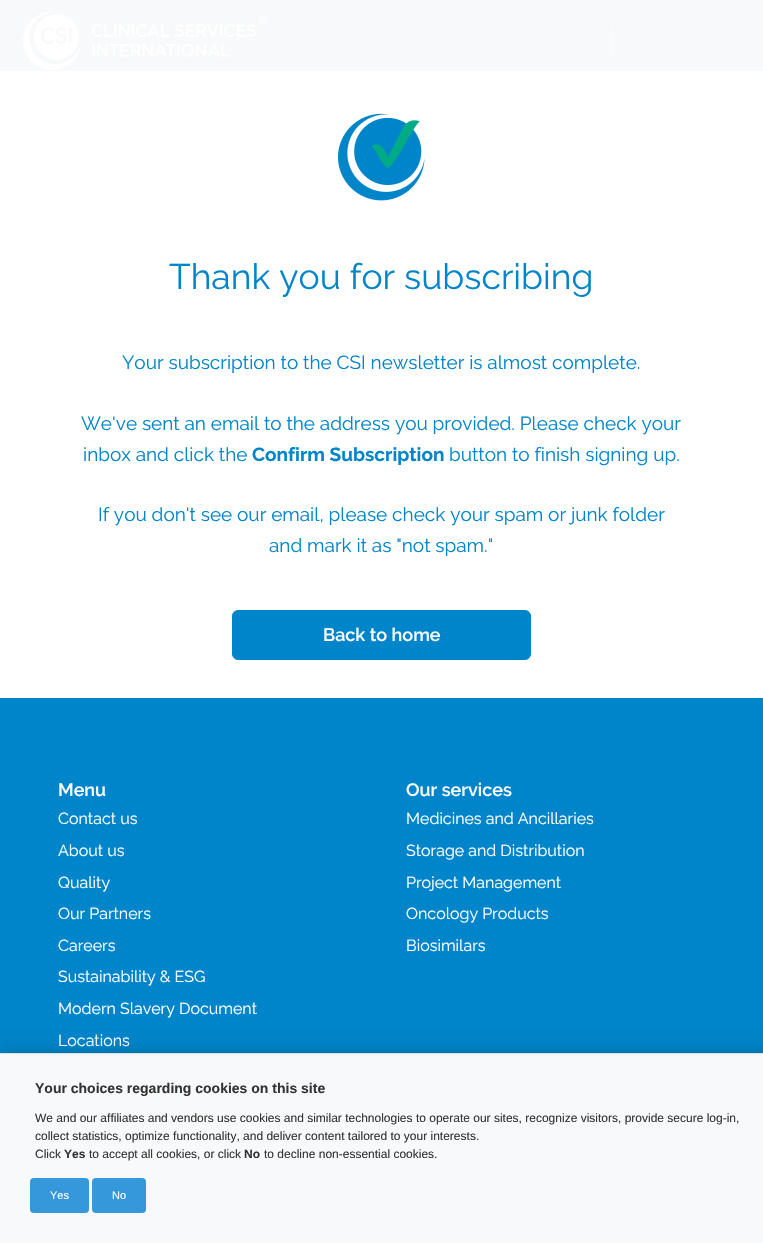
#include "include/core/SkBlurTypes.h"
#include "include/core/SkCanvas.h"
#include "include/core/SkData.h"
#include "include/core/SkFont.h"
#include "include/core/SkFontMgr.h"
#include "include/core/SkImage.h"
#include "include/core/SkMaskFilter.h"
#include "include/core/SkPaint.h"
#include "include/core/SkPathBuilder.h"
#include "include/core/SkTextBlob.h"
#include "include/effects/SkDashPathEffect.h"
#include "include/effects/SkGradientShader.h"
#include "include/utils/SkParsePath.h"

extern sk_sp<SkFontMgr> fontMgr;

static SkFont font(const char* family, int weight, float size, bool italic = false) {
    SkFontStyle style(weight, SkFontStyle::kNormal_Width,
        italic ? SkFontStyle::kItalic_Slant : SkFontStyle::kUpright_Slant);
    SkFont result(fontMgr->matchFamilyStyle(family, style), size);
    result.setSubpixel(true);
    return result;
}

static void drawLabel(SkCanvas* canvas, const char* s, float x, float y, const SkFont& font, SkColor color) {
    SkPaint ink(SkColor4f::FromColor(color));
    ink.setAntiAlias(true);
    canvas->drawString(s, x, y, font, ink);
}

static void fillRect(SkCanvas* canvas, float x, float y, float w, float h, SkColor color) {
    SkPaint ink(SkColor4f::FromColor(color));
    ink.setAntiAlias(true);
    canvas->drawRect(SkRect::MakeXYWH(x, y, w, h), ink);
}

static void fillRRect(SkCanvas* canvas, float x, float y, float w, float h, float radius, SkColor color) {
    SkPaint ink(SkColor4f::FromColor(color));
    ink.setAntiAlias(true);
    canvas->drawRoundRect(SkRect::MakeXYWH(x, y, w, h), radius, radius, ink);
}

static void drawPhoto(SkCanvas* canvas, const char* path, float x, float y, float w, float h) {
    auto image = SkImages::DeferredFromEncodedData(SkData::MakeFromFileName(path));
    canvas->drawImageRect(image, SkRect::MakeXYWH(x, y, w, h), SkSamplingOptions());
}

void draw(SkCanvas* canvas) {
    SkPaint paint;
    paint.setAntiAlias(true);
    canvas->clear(0xFFF8F9FA);
    drawPhoto(canvas, "assets/img1.png", 23, 12, 245, 58);
    fillRect(canvas, 611, 25, 1, 31, 0xFFFCFDFD);
    fillRect(canvas, 0, 71, 763, 627, 0xFFFFFFFF);
    drawPhoto(canvas, "assets/img2.png", 338, 113, 87, 88);
    SkFont font1 = font("Raleway", 400, 35.5f);
    drawLabel(canvas, "Thank you for subscribing", 169, 289, font1, 0xFF0085CA);
    SkFont font2 = font("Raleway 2", 400, 19);
    drawLabel(canvas, "Your subscription to the CSI newsletter is almost complete.", 122, 369, font2, 0xFF0085CA);
    drawLabel(canvas, "We've sent an email to the address you provided. Please check your", 81, 430, font2, 0xFF0085CA);
    drawLabel(canvas, "inbox and click the", 83, 461, font2, 0xFF0085CA);
    SkFont font3 = font("Raleway", 700, 19);
    drawLabel(canvas, "Confirm Subscription", 252, 461, font3, 0xFF0085CA);
    drawLabel(canvas, "button to finish signing up.", 449, 461, font2, 0xFF0085CA);
    drawLabel(canvas, "If you don't see our email, please check your spam or junk folder", 98, 521, font2, 0xFF0085CA);
    drawLabel(canvas, "and mark it as \"not spam.\"", 269, 552, font2, 0xFF0085CA);
    paint.setColor(0xFF0085CA);
    canvas->drawRoundRect(SkRect::MakeXYWH(232.5f, 610.5f, 298, 49), 5.5f, 5.5f, paint);
    paint.setStroke(true);
    paint.setStrokeWidth(1);
    canvas->drawRoundRect(SkRect::MakeXYWH(232.5f, 610.5f, 298, 49), 5.5f, 5.5f, paint);
    SkFont font4 = font("Raleway", 600, 18);
    drawLabel(canvas, "Back to home", 323, 641, font4, 0xFFFFFFFF);
    fillRect(canvas, 0, 698, 763, 355, 0xFF0085CA);
    drawLabel(canvas, "Menu", 58, 796, font4, 0xFFFFFFFF);
    SkFont font5 = font("Raleway 2", 400, 16);
    drawLabel(canvas, "Contact us", 58, 824, font5, 0xFFFFFFFF);
    drawLabel(canvas, "About us", 58, 856, font5, 0xFFFFFFFF);
    drawLabel(canvas, "Quality", 58, 888, font5, 0xFFFFFFFF);
    drawLabel(canvas, "Our Partners", 58, 919, font5, 0xFFFFFFFF);
    drawLabel(canvas, "Careers", 58, 951, font5, 0xFFFFFFFF);
    drawLabel(canvas, "Sustainability & ESG", 58, 982, font5, 0xFFFFFFFF);
    drawLabel(canvas, "Modern Slavery Document", 58, 1014, font5, 0xFFFFFFFF);
    drawLabel(canvas, "Locations", 58, 1046, font5, 0xFFFFFFFF);
    drawLabel(canvas, "Our services", 406, 796, font4, 0xFFFFFFFF);
    drawLabel(canvas, "Medicines and Ancillaries", 406, 824, font5, 0xFFFFFFFF);
    drawLabel(canvas, "Storage and Distribution", 406, 856, font5, 0xFFFFFFFF);
    drawLabel(canvas, "Project Management", 406, 888, font5, 0xFFFFFFFF);
    drawLabel(canvas, "Oncology Products", 406, 919, font5, 0xFFFFFFFF);
    drawLabel(canvas, "Biosimilars", 406, 951, font5, 0xFFFFFFFF);
    paint.setStroke(false);
    paint.setColor(0x26000000);
    paint.setMaskFilter(SkMaskFilter::MakeBlur(kNormal_SkBlurStyle, 7.5f));
    canvas->drawRect(SkRect::MakeXYWH(0, 1050, 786, 190), paint);
    paint.setMaskFilter(nullptr);
    fillRect(canvas, 0, 1054, 763, 189, 0xFFF8F9FA);
    fillRect(canvas, 0, 1053, 10, 1, 0xFFE0E0E0);
    SkFont font6 = font("Liberation Sans", 700, 14);
    drawLabel(canvas, "Your choices regarding cookies on this site", 35, 1093, font6, 0xFF333333);
    SkFont font7 = font("Liberation Sans", 400, 12);
    drawLabel(canvas, "We and our affiliates and vendors use cookies and similar technologies to operate our sites, recognize visitors, provide secure log-in,", 35, 1122, font7, 0xFF333333);
    drawLabel(canvas, "collect statistics, optimize functionality, and deliver content tailored to your interests.", 35, 1140, font7, 0xFF333333);
    drawLabel(canvas, "Click", 35, 1158, font7, 0xFF333333);
    SkFont font8 = font("Liberation Sans", 700, 12);
    drawLabel(canvas, "Yes", 64, 1158, font8, 0xFF333333);
    drawLabel(canvas, "to accept all cookies, or click", 89, 1158, font7, 0xFF333333);
    drawLabel(canvas, "No", 244, 1158, font8, 0xFF333333);
    drawLabel(canvas, "to decline non-essential cookies.", 264, 1158, font7, 0xFF333333);
    fillRRect(canvas, 30, 1178, 59, 35, 4, 0xFF3498DB);
    SkFont font9 = font("Liberation Sans", 400, 11);
    drawLabel(canvas, "Yes", 50, 1199, font9, 0xFFFFFFFF);
    fillRRect(canvas, 92, 1178, 54, 35, 4, 0xFF3498DB);
    drawLabel(canvas, "No", 112, 1199, font9, 0xFFFFFFFF);
}
